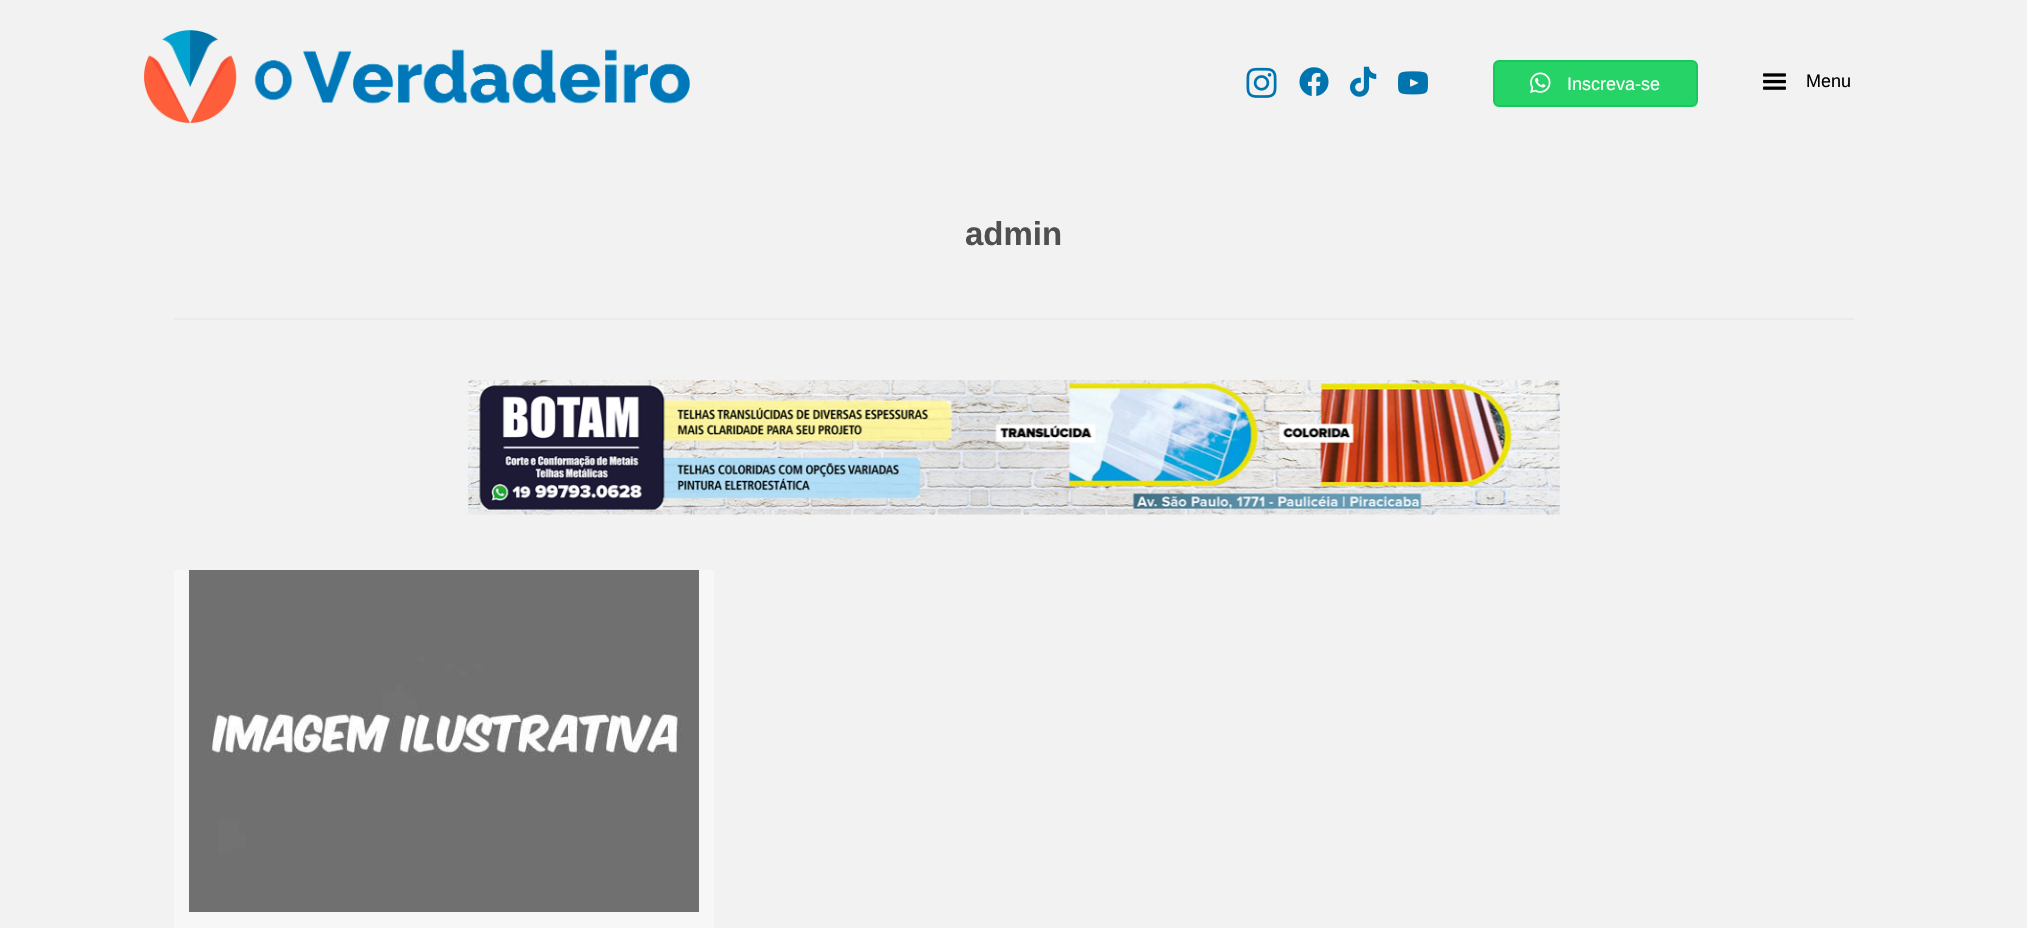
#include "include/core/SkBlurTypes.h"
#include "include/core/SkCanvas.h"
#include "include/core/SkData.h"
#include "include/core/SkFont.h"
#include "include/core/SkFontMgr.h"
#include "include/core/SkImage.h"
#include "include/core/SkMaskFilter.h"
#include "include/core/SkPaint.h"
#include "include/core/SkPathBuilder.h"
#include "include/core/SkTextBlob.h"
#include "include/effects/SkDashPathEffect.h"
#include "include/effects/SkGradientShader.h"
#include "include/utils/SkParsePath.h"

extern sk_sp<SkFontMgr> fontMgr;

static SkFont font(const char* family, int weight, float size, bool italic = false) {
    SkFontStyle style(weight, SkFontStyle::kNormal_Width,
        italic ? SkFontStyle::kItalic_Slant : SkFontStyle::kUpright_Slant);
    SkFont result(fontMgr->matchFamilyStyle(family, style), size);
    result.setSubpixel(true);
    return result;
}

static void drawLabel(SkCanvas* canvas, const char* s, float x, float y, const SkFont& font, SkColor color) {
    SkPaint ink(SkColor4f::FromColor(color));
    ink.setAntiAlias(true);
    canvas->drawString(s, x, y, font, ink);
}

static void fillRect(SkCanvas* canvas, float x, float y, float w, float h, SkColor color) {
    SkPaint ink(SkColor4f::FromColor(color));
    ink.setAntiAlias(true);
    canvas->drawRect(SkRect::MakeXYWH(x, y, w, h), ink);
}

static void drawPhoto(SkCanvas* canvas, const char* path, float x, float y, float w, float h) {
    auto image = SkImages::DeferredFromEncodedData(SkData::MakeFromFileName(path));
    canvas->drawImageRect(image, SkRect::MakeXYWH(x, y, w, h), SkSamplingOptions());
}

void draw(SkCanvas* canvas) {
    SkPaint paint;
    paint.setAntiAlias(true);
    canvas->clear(0xFFF2F2F2);
    drawPhoto(canvas, "assets/img1.png", 144, 30, 546, 93);
    drawPhoto(canvas, "assets/img2.png", 1246, 67, 31, 31);
    drawPhoto(canvas, "assets/img3.png", 1299, 67, 30, 29);
    drawPhoto(canvas, "assets/img4.png", 1350, 66, 27, 31);
    drawPhoto(canvas, "assets/img5.png", 1398, 71, 30, 24);
    paint.setColor(0xFF25D366);
    canvas->drawRoundRect(SkRect::MakeXYWH(1494, 61, 203, 45), 5, 5, paint);
    paint.setStroke(true);
    paint.setStrokeWidth(2);
    paint.setColor(0xFF19C75A);
    canvas->drawRoundRect(SkRect::MakeXYWH(1494, 61, 203, 45), 5, 5, paint);
    drawPhoto(canvas, "assets/img6.png", 1530, 72, 21, 21);
    SkFont font1 = font("Liberation Sans", 400, 18);
    drawLabel(canvas, "Inscreva-se", 1567, 90, font1, 0xFFFFFFFF);
    drawPhoto(canvas, "assets/img7.png", 1763, 73, 23, 17);
    drawLabel(canvas, "Menu", 1806, 87, font1, 0xFF000000);
    SkFont font2 = font("Liberation Sans", 700, 33);
    drawLabel(canvas, "admin", 965, 245, font2, 0xFF4F4F4F);
    fillRect(canvas, 174, 318, 1680, 2, 0xFFEAEAEA);
    drawPhoto(canvas, "assets/img8.png", 468, 380, 1092, 135);
    fillRect(canvas, 174, 570, 540, 358, 0xFFF7F7F7);
    drawPhoto(canvas, "assets/img9.png", 189, 570, 510, 342);
}
